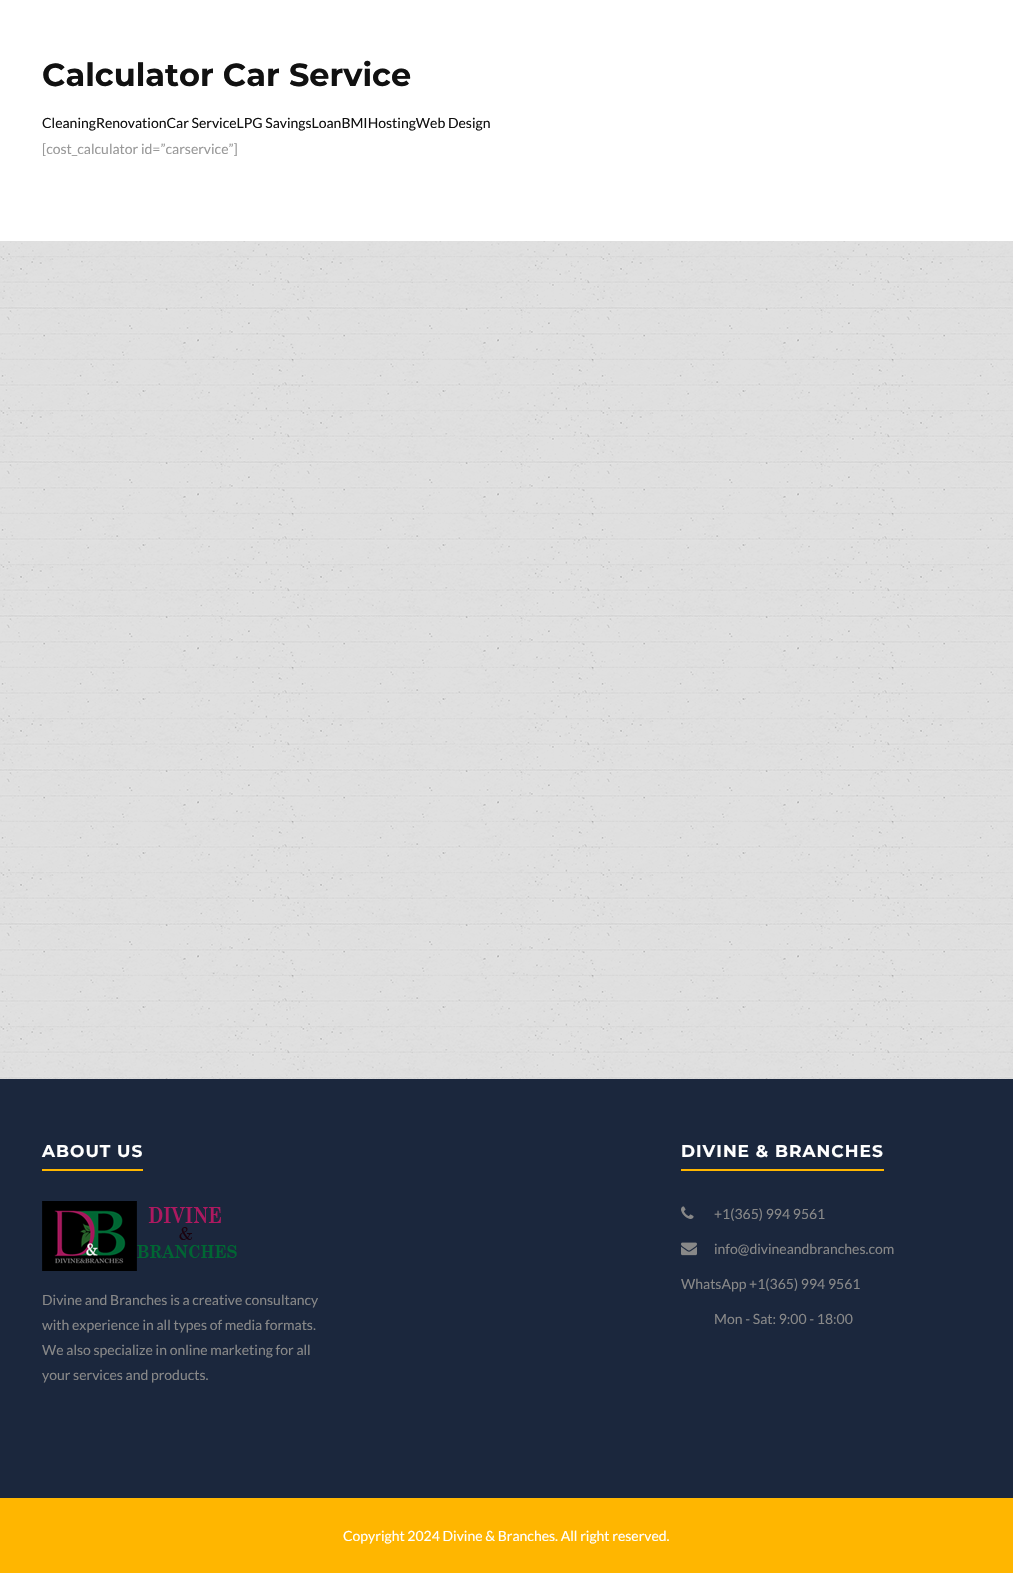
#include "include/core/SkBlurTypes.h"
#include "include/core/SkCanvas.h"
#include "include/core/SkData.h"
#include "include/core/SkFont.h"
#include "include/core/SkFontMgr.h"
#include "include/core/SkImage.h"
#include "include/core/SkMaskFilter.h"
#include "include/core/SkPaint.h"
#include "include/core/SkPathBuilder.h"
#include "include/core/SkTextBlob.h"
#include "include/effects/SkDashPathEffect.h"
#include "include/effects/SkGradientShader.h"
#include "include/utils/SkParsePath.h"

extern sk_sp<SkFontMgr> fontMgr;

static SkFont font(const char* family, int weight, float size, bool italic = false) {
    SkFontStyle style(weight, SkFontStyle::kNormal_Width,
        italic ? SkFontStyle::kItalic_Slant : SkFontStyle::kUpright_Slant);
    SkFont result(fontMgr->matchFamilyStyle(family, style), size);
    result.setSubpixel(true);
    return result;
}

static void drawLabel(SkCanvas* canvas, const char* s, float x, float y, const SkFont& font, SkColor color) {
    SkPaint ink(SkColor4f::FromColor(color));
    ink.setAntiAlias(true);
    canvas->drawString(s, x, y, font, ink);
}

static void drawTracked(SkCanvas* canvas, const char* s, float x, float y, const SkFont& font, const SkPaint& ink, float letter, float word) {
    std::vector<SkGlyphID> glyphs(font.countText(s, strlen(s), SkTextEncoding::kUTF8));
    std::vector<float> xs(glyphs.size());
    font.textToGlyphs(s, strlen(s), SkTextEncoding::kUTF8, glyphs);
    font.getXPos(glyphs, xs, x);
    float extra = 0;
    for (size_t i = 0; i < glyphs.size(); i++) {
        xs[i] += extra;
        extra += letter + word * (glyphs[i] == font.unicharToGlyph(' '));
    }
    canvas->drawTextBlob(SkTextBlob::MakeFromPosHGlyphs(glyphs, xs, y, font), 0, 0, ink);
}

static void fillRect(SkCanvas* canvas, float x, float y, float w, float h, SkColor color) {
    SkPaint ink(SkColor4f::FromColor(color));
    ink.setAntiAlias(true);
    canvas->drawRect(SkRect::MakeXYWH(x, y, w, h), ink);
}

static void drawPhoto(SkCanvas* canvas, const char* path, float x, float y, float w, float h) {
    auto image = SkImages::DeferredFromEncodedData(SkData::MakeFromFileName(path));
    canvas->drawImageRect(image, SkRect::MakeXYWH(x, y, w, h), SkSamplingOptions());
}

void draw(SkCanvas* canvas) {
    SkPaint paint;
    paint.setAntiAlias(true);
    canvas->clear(0xFFFFFFFF);
    drawPhoto(canvas, "assets/img1.png", 0, 241, 1013, 838);
    SkFont font1 = font("Montserrat", 700, 32);
    drawLabel(canvas, "Calculator Car Service", 42, 86, font1, 0xFF111111);
    SkFont font2 = font("Lato", 400, 14);
    drawLabel(canvas, "CleaningRenovationCar ServiceLPG SavingsLoanBMIHostingWeb Design", 42, 128, font2, 0xFF111111);
    drawLabel(canvas, "[cost_calculator id=”carservice”]", 42, 154, font2, 0xFF999999);
    fillRect(canvas, 0, 1079, 1013, 419, 0xFF1B273D);
    SkFont font3 = font("Montserrat", 700, 17);
    paint.setColor(0xFFFFFFFF);
    drawTracked(canvas, "ABOUT US", 42, 1157, font3, paint, 1, 0);
    fillRect(canvas, 42, 1169, 101, 2, 0xFFFFB600);
    drawPhoto(canvas, "assets/img2.png", 42, 1201, 195, 70);
    drawLabel(canvas, "Divine and Branches is a creative consultancy", 42, 1305, font2, 0xFF888888);
    drawLabel(canvas, "with experience in all types of media formats.", 42, 1330, font2, 0xFF888888);
    drawLabel(canvas, "We also specialize in online marketing for all", 42, 1355, font2, 0xFF888888);
    drawLabel(canvas, "your services and products.", 42, 1380, font2, 0xFF888888);
    drawTracked(canvas, "DIVINE & BRANCHES", 681, 1157, font3, paint, 1, 0);
    fillRect(canvas, 681, 1169, 203, 2, 0xFFFFB600);
    drawPhoto(canvas, "assets/img3.png", 681, 1206, 13, 13);
    drawLabel(canvas, "+1(365) 994 9561", 714, 1219, font2, 0xFF888888);
    drawPhoto(canvas, "assets/img4.png", 681, 1242, 16, 14);
    drawLabel(canvas, "info@divineandbranches.com", 714, 1254, font2, 0xFF888888);
    drawLabel(canvas, "WhatsApp +1(365) 994 9561", 681, 1289, font2, 0xFF888888);
    drawLabel(canvas, "Mon - Sat: 9:00 - 18:00", 714, 1324, font2, 0xFF888888);
    fillRect(canvas, 0, 1498, 1013, 75, 0xFFFFB600);
    drawLabel(canvas, "Copyright 2024 Divine & Branches. All right reserved.", 343, 1541, font2, 0xFFFFFFFF);
}
